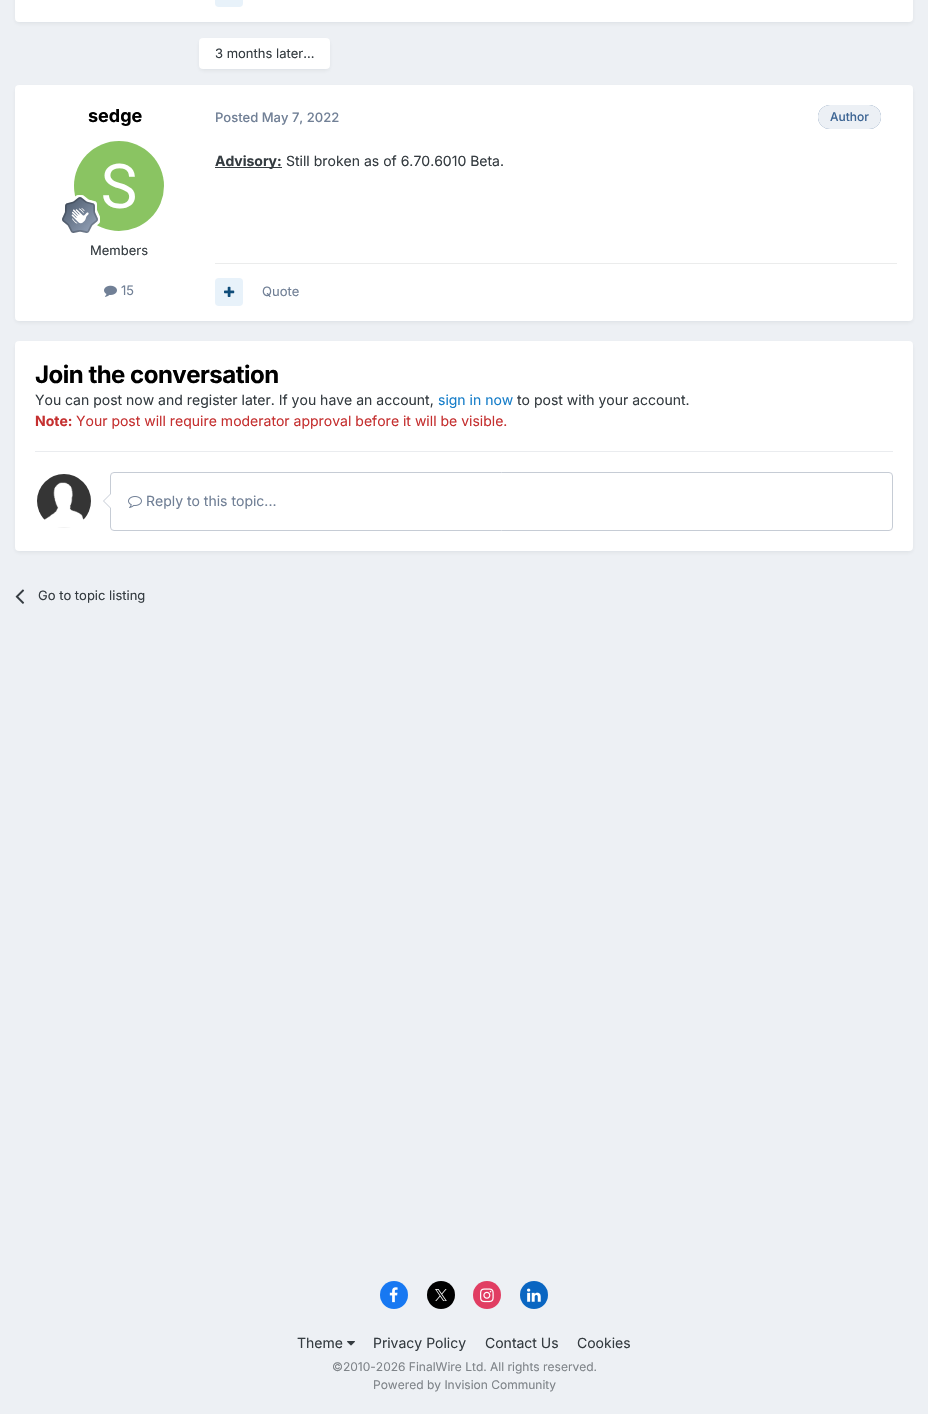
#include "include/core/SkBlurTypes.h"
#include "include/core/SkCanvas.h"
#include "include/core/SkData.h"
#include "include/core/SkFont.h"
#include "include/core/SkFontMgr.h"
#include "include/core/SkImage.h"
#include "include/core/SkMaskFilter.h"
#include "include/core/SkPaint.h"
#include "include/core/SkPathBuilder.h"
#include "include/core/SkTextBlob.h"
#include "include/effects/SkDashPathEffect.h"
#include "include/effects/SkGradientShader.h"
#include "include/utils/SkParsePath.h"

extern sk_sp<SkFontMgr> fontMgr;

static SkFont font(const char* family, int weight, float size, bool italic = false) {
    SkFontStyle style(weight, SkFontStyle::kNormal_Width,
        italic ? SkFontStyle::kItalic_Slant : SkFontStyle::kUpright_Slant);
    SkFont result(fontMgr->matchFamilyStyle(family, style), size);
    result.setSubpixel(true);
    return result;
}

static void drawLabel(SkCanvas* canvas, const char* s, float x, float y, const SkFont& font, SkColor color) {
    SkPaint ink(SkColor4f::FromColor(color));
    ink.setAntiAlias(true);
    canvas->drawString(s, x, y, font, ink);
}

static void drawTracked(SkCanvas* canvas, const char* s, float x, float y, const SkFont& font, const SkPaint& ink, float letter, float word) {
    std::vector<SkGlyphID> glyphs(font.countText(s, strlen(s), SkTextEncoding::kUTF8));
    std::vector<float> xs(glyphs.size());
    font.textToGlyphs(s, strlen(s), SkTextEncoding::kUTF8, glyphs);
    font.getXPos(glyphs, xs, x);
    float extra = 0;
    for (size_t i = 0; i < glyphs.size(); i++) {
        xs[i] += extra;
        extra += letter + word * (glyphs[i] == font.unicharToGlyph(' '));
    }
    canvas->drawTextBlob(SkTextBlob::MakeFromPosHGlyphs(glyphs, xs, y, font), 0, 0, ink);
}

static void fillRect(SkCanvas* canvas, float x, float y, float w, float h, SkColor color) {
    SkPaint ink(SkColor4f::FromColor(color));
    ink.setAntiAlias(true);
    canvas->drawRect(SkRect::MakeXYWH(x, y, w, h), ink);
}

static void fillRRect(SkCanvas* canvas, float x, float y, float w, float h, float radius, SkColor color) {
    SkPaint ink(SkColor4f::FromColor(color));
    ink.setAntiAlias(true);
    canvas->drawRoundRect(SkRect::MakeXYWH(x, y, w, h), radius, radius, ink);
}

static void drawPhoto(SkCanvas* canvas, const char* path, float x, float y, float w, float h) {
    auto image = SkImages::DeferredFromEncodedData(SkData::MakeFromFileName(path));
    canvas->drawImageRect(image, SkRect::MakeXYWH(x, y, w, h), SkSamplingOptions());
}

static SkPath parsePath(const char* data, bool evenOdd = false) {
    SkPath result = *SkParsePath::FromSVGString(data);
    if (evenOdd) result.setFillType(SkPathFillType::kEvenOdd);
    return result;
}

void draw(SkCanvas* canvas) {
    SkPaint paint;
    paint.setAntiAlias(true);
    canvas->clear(0xFFEDF0F4);
    paint.setColor(0x1A2D3748);
    paint.setMaskFilter(SkMaskFilter::MakeBlur(kNormal_SkBlurStyle, 2));
    canvas->drawRoundRect(SkRect::MakeXYWH(16, -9, 896, 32), 3, 3, paint);
    paint.setMaskFilter(nullptr);
    fillRRect(canvas, 15, -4, 898, 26, 4, 0xFFFFFFFF);
    fillRRect(canvas, 215, -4, 28, 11, 4, 0xFFE8F2FA);
    paint.setMaskFilter(SkMaskFilter::MakeBlur(kNormal_SkBlurStyle, 2));
    canvas->drawRoundRect(SkRect::MakeXYWH(200, 41, 129, 29), 3, 3, paint);
    paint.setMaskFilter(nullptr);
    fillRRect(canvas, 199, 38, 131, 31, 4, 0xFFFFFFFF);
    SkFont font1 = font("Inter", 400, 13);
    drawLabel(canvas, "3 months later...", 215, 58, font1, 0xFF353C41);
    paint.setMaskFilter(SkMaskFilter::MakeBlur(kNormal_SkBlurStyle, 2));
    canvas->drawRoundRect(SkRect::MakeXYWH(16, 88, 896, 234), 3, 3, paint);
    paint.setMaskFilter(nullptr);
    fillRRect(canvas, 15, 85, 898, 236, 4, 0xFFFFFFFF);
    SkFont font2 = font("Inter", 700, 18);
    drawLabel(canvas, "sedge", 88, 122, font2, 0xFF000000);
    drawPhoto(canvas, "assets/img1.png", 74, 141, 90, 90);
    drawPhoto(canvas, "assets/img2.png", 62, 195, 38, 38);
    drawLabel(canvas, "Members", 90, 255, font1, 0xFF353C41);
    drawPhoto(canvas, "assets/img3.png", 104, 285, 13, 12);
    drawLabel(canvas, "15", 121, 295, font1, 0xFF718096);
    SkFont font3 = font("Inter", 500, 13);
    drawLabel(canvas, "Posted May 7, 2022", 215, 122, font3, 0xFF718096);
    fillRRect(canvas, 818, 105, 63, 24, 12, 0xFF3D6594);
    fillRRect(canvas, 818, 105, 63, 24, 12, 0xE6FFFFFF);
    SkFont font4 = font("Inter", 500, 12);
    drawLabel(canvas, "Author", 830, 121, font4, 0xFF3D6594);
    fillRect(canvas, 215, 167, 67, 1, 0xFF353C41);
    SkFont font5 = font("Inter", 700, 14);
    drawLabel(canvas, "Advisory:", 215, 166, font5, 0xFF353C41);
    SkFont font6 = font("Inter", 400, 14);
    drawLabel(canvas, "Still broken as of 6.70.6010 Beta.", 286, 166, font6, 0xFF353C41);
    fillRect(canvas, 215, 263, 682, 1, 0xFFEBECEC);
    fillRRect(canvas, 215, 278, 28, 28, 4, 0xFFE8F2FA);
    drawPhoto(canvas, "assets/img4.png", 224, 286, 11, 11);
    drawLabel(canvas, "Quote", 262, 296, font1, 0xFF718096);
    paint.setMaskFilter(SkMaskFilter::MakeBlur(kNormal_SkBlurStyle, 2));
    canvas->drawRoundRect(SkRect::MakeXYWH(16, 344, 896, 208), 3, 3, paint);
    paint.setMaskFilter(nullptr);
    fillRRect(canvas, 15, 341, 898, 210, 4, 0xFFFFFFFF);
    fillRect(canvas, 35, 451, 858, 1, 0xFFEAECEF);
    SkFont font7 = font("Inter", 700, 24);
    paint.setColor(0xFF000000);
    drawTracked(canvas, "Join the conversation", 35, 383, font7, paint, -0.5f, 0);
    drawLabel(canvas, "You can post now and register later. If you have an account,", 35, 405, font6, 0xFF353C41);
    drawLabel(canvas, "sign in now", 438, 405, font6, 0xFF177EC9);
    drawLabel(canvas, "to post with your account.", 517, 405, font6, 0xFF353C41);
    drawLabel(canvas, "Note:", 35, 426, font5, 0xFFC53030);
    drawLabel(canvas, "Your post will require moderator approval before it will be visible.", 76, 426, font6, 0xFFC53030);
    drawPhoto(canvas, "assets/img5.png", 37, 474, 54, 54);
    paint.setStroke(true);
    paint.setStrokeWidth(1);
    paint.setColor(0xFFC6CCD5);
    canvas->drawRoundRect(SkRect::MakeXYWH(110.5f, 472.5f, 782, 58), 3.5f, 3.5f, paint);
    paint.setStroke(false);
    canvas->drawPath(parsePath("M110 494V508L103 501Z"), paint);
    paint.setColor(0xFFFFFFFF);
    canvas->drawPath(parsePath("M111 494V508L104 501Z"), paint);
    drawPhoto(canvas, "assets/img6.png", 128, 496, 14, 12);
    drawLabel(canvas, "Reply to this topic...", 146, 506, font6, 0xFF718096);
    drawPhoto(canvas, "assets/img7.png", 15, 589, 10, 15);
    drawLabel(canvas, "Go to topic listing", 38, 600, font1, 0xFF353C41);
    paint.setColor(0xFF1778F2);
    canvas->drawCircle(394, 1295, 14, paint);
    drawPhoto(canvas, "assets/img8.png", 389, 1287, 9, 16);
    paint.setColor(0xFF000000);
    canvas->drawCircle(441, 1295, 14, paint);
    drawPhoto(canvas, "assets/img9.png", 435, 1289, 12, 12);
    paint.setColor(0xFFE13D62);
    canvas->drawCircle(487, 1295, 14, paint);
    drawPhoto(canvas, "assets/img10.png", 480, 1288, 14, 15);
    paint.setColor(0xFF0A66C2);
    canvas->drawCircle(534, 1295, 14, paint);
    drawPhoto(canvas, "assets/img11.png", 527, 1288, 14, 14);
    drawLabel(canvas, "Theme", 297, 1348, font6, 0xFF353C41);
    drawPhoto(canvas, "assets/img12.png", 347, 1341, 8, 5);
    drawLabel(canvas, "Privacy Policy", 373, 1348, font6, 0xFF353C41);
    drawLabel(canvas, "Contact Us", 485, 1348, font6, 0xFF353C41);
    drawLabel(canvas, "Cookies", 577, 1348, font6, 0xFF353C41);
    SkFont font8 = font("Inter", 400, 12);
    drawLabel(canvas, "©2010-2026 FinalWire Ltd. All rights reserved.", 332, 1371, font8, 0xFF7F8489);
    drawLabel(canvas, "Powered by Invision Community", 373, 1389, font8, 0xFF7F8489);
}
